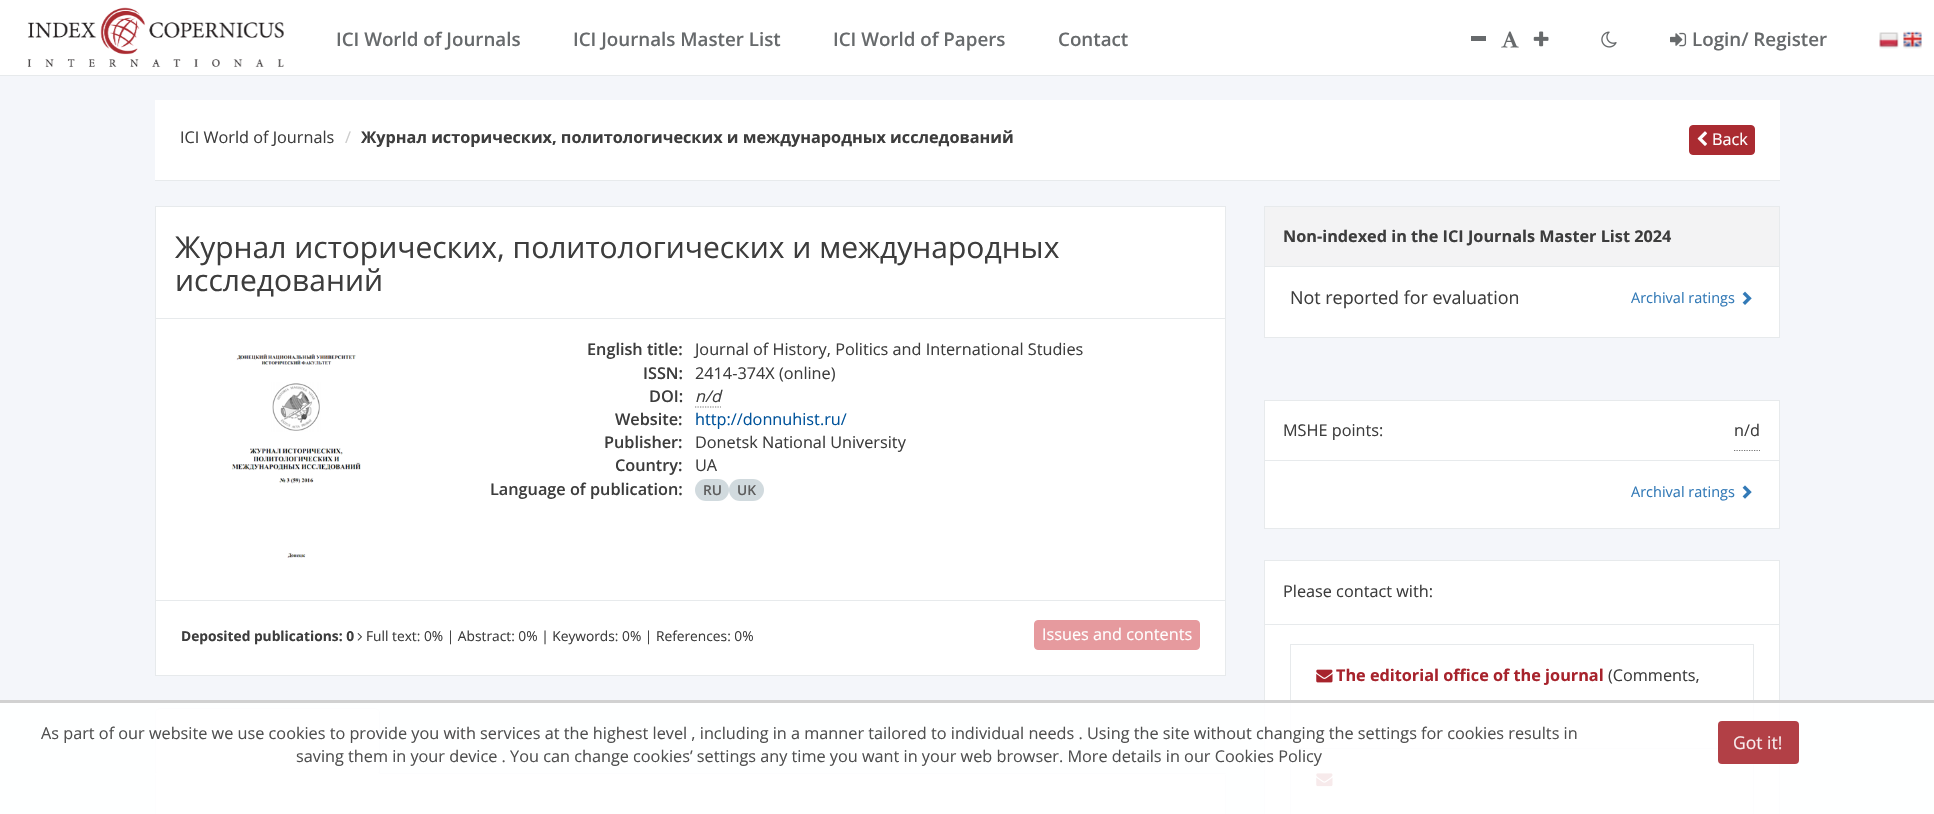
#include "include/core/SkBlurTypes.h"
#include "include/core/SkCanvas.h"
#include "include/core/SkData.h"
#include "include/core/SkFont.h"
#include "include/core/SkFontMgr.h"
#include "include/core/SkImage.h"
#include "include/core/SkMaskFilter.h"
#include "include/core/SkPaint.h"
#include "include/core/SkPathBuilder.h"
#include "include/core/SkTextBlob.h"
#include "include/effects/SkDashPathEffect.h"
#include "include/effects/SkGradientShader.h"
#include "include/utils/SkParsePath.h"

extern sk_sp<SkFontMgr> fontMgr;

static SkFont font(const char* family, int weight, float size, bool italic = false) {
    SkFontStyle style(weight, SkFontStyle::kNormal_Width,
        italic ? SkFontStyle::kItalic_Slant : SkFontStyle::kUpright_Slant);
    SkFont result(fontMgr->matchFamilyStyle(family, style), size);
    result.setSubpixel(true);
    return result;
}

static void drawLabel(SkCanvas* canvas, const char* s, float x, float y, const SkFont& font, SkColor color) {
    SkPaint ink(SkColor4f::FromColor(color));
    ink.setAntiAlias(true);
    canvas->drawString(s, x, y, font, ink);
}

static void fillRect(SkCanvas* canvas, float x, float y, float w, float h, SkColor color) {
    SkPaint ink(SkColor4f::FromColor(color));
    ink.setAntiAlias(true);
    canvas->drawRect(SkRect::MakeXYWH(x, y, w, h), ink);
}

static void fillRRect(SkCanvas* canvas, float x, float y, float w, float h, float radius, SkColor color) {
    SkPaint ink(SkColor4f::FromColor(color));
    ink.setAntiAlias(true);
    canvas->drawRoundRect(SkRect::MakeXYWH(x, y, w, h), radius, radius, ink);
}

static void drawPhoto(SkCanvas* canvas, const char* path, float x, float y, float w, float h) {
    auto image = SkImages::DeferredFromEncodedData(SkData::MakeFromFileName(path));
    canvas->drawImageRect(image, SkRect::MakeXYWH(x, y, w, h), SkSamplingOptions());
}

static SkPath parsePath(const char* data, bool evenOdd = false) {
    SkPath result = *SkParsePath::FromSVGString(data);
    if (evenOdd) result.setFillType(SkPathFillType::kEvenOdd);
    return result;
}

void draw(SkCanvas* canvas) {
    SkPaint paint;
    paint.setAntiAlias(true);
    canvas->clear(0xFFF4F6FA);
    fillRect(canvas, 0, 0, 1934, 75, 0xFFFFFFFF);
    fillRect(canvas, 0, 75, 1934, 1, 0xFFE7EAEC);
    drawPhoto(canvas, "assets/img1.png", 27, 7, 257, 60);
    SkFont font1 = font("Open Sans", 600, 18.75f);
    drawLabel(canvas, "ICI World of Journals", 336, 46, font1, 0xFF676A6C);
    drawLabel(canvas, "ICI Journals Master List", 573, 46, font1, 0xFF676A6C);
    drawLabel(canvas, "ICI World of Papers", 833, 46, font1, 0xFF676A6C);
    drawLabel(canvas, "Contact", 1058, 46, font1, 0xFF676A6C);
    fillRect(canvas, 1471, 36, 15, 5, 0xFF676A6C);
    drawPhoto(canvas, "assets/img2.png", 1501, 31, 18, 17);
    drawPhoto(canvas, "assets/img3.png", 1533, 31, 16, 16);
    drawPhoto(canvas, "assets/img4.png", 1601, 31, 16, 17);
    drawPhoto(canvas, "assets/img5.png", 1670, 32, 17, 15);
    drawLabel(canvas, "Login/ Register", 1692, 46, font1, 0xFF676A6C);
    drawPhoto(canvas, "assets/img6.png", 1879, 32, 20, 17);
    drawPhoto(canvas, "assets/img7.png", 1903, 31, 19, 18);
    fillRect(canvas, 155, 100, 1625, 80, 0xFFFFFFFF);
    fillRect(canvas, 155, 180, 1625, 1, 0xFFE7EAEC);
    SkFont font2 = font("Open Sans", 400, 16.25f);
    drawLabel(canvas, "ICI World of Journals", 180, 143, font2, 0xFF3D3D3D);
    drawLabel(canvas, "/", 345, 143, font2, 0xFFCCCCCC);
    SkFont font3 = font("Open Sans", 700, 16.25f);
    drawLabel(canvas, "Журнал исторических, политологических и международных исследований", 361, 143, font3, 0xFF3D3D3D);
    paint.setColor(0xFFAA2B31);
    canvas->drawRoundRect(SkRect::MakeXYWH(1689.5f, 125.5f, 65, 29), 3.5f, 3.5f, paint);
    paint.setStroke(true);
    paint.setStrokeWidth(1);
    canvas->drawRoundRect(SkRect::MakeXYWH(1689.5f, 125.5f, 65, 29), 3.5f, 3.5f, paint);
    drawPhoto(canvas, "assets/img8.png", 1697, 131, 10, 15);
    drawLabel(canvas, "Back", 1712, 145, font2, 0xFFFFFFFF);
    fillRect(canvas, 156, 207, 1069, 111, 0xFFFFFFFF);
    fillRect(canvas, 155, 206, 1071, 1, 0xFFE7EAEC);
    fillRect(canvas, 1225, 206, 1, 112, 0xFFE7EAEC);
    fillRect(canvas, 155, 206, 1, 112, 0xFFE7EAEC);
    SkFont font4 = font("Open Sans", 400, 30);
    drawLabel(canvas, "Журнал исторических, политологических и международных", 175, 258, font4, 0xFF3D3D3D);
    drawLabel(canvas, "исследований", 175, 291, font4, 0xFF3D3D3D);
    fillRect(canvas, 156, 319, 1069, 281, 0xFFFFFFFF);
    fillRect(canvas, 155, 318, 1071, 1, 0xFFE7EAEC);
    fillRect(canvas, 1225, 318, 1, 282, 0xFFE7EAEC);
    fillRect(canvas, 155, 318, 1, 282, 0xFFE7EAEC);
    drawPhoto(canvas, "assets/img9.png", 232, 354, 129, 204);
    SkFont font5 = font("Open Sans", 600, 16.25f);
    drawLabel(canvas, "English title:", 587, 355, font5, 0xFF3D3D3D);
    drawLabel(canvas, "Journal of History, Politics and International Studies", 695, 355, font2, 0xFF3D3D3D);
    drawLabel(canvas, "ISSN:", 643, 379, font5, 0xFF3D3D3D);
    drawLabel(canvas, "2414-374X (online)", 695, 379, font2, 0xFF3D3D3D);
    drawLabel(canvas, "DOI:", 649, 402, font5, 0xFF3D3D3D);
    SkFont font6 = font("Open Sans", 400, 16.25f, true);
    drawLabel(canvas, "n/d", 695, 402, font6, 0xFF3D3D3D);
    paint.setStrokeWidth(1.2f);
    paint.setColor(0xFF777777);
    paint.setPathEffect(SkDashPathEffect::Make({{1.25f, 1.25f}}, 0));
    canvas->drawPath(parsePath("M695 407H721"), paint);
    paint.setPathEffect(nullptr);
    drawLabel(canvas, "Website:", 615, 425, font5, 0xFF3D3D3D);
    drawLabel(canvas, "http://donnuhist.ru/", 695, 425, font2, 0xFF00539B);
    drawLabel(canvas, "Publisher:", 604, 448, font5, 0xFF3D3D3D);
    drawLabel(canvas, "Donetsk National University", 695, 448, font2, 0xFF3D3D3D);
    drawLabel(canvas, "Country:", 615, 471, font5, 0xFF3D3D3D);
    drawLabel(canvas, "UA", 695, 471, font2, 0xFF3D3D3D);
    drawLabel(canvas, "Language of publication:", 490, 495, font5, 0xFF3D3D3D);
    fillRRect(canvas, 695, 479, 34, 22, 11, 0xFFD1DADE);
    SkFont font7 = font("Open Sans", 600, 13.75f);
    drawLabel(canvas, "RU", 703, 495, font7, 0xFF5E5E5E);
    fillRRect(canvas, 729, 479, 35, 22, 11, 0xFFD1DADE);
    drawLabel(canvas, "UK", 737, 495, font7, 0xFF5E5E5E);
    paint.setStroke(false);
    paint.setColor(0xFFFFFFFF);
    canvas->drawRect(SkRect::MakeXYWH(155.5f, 600.5f, 1070, 75), paint);
    paint.setStroke(true);
    paint.setStrokeWidth(1);
    paint.setColor(0xFFE7EAEC);
    canvas->drawRect(SkRect::MakeXYWH(155.5f, 600.5f, 1070, 75), paint);
    SkFont font8 = font("Open Sans", 700, 13.75f);
    drawLabel(canvas, "Deposited publications: 0", 181, 641, font8, 0xFF3D3D3D);
    drawPhoto(canvas, "assets/img10.png", 357, 633, 5, 8);
    SkFont font9 = font("Open Sans", 400, 13.75f);
    drawLabel(canvas, "Full text: 0% | Abstract: 0% | Keywords: 0% | References: 0%", 366, 641, font9, 0xFF3D3D3D);
    paint.setStroke(false);
    paint.setColor(0xFFE69A9E);
    canvas->drawRoundRect(SkRect::MakeXYWH(1034.5f, 620.5f, 165, 29), 3.5f, 3.5f, paint);
    paint.setStroke(true);
    canvas->drawRoundRect(SkRect::MakeXYWH(1034.5f, 620.5f, 165, 29), 3.5f, 3.5f, paint);
    drawLabel(canvas, "Issues and contents", 1042, 640, font2, 0xFFFFFFFF);
    fillRect(canvas, 380, 773, 846, 1, 0xFFE7EAEC);
    paint.setStroke(false);
    paint.setColor(0xFFFFFFFF);
    canvas->drawPath(parsePath("M160 708H375C378 708 380 710 380 713V774H155V713C155 710 157 708 160 708Z"), paint);
    paint.setColor(0xFFE7EAEC);
    canvas->drawPath(parsePath("M160 708L157 709V710L160 709H375L378 710V709L375 708Z"), paint);
    canvas->drawPath(parsePath("M380 774V712L378 709V710L379 712V772H378Z"), paint);
    canvas->drawPath(parsePath("M155 774L157 772H156V712L157 710V709C156 710 155 711 155 712Z"), paint);
    fillRRect(canvas, 155, 774, 1071, 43, 2.5f, 0xFFFFFFFF);
    fillRect(canvas, 1225, 775, 1, 39, 0xFFE7EAEC);
    fillRect(canvas, 155, 775, 1, 39, 0xFFE7EAEC);
    fillRect(canvas, 1265, 207, 514, 59, 0xFFF3F3F4);
    fillRect(canvas, 1264, 206, 516, 1, 0xFFE7EAEC);
    fillRect(canvas, 1779, 206, 1, 60, 0xFFE7EAEC);
    fillRect(canvas, 1264, 206, 1, 60, 0xFFE7EAEC);
    drawLabel(canvas, "Non-indexed in the ICI Journals Master List 2024", 1283, 242, font3, 0xFF3D3D3D);
    paint.setColor(0xFFFFFFFF);
    canvas->drawRect(SkRect::MakeXYWH(1264.5f, 266.5f, 515, 71), paint);
    paint.setStroke(true);
    paint.setColor(0xFFE7EAEC);
    canvas->drawRect(SkRect::MakeXYWH(1264.5f, 266.5f, 515, 71), paint);
    SkFont font10 = font("Open Sans", 400, 17.9f);
    drawLabel(canvas, "Not reported for evaluation", 1290, 304, font10, 0xFF3D3D3D);
    SkFont font11 = font("Open Sans", 400, 14.5f);
    drawLabel(canvas, "Archival ratings", 1631, 303, font11, 0xFF337AB7);
    drawPhoto(canvas, "assets/img11.png", 1742, 291, 10, 14);
    fillRect(canvas, 1265, 401, 514, 59, 0xFFFFFFFF);
    fillRect(canvas, 1264, 400, 516, 1, 0xFFE7EAEC);
    fillRect(canvas, 1779, 400, 1, 60, 0xFFE7EAEC);
    fillRect(canvas, 1264, 400, 1, 60, 0xFFE7EAEC);
    drawLabel(canvas, "MSHE points:", 1283, 436, font2, 0xFF3D3D3D);
    paint.setStrokeWidth(1.2f);
    paint.setColor(0xFF777777);
    paint.setPathEffect(SkDashPathEffect::Make({{1.25f, 1.25f}}, 0));
    canvas->drawPath(parsePath("M1734 450.5H1760"), paint);
    paint.setPathEffect(nullptr);
    drawLabel(canvas, "n/d", 1734, 436, font2, 0xFF3D3D3D);
    paint.setStroke(false);
    paint.setColor(0xFFFFFFFF);
    canvas->drawRect(SkRect::MakeXYWH(1264.5f, 460.5f, 515, 68), paint);
    paint.setStroke(true);
    paint.setStrokeWidth(1);
    paint.setColor(0xFFE7EAEC);
    canvas->drawRect(SkRect::MakeXYWH(1264.5f, 460.5f, 515, 68), paint);
    drawLabel(canvas, "Archival ratings", 1631, 497, font11, 0xFF337AB7);
    drawPhoto(canvas, "assets/img12.png", 1742, 485, 10, 14);
    fillRect(canvas, 1265, 561, 514, 63, 0xFFFFFFFF);
    fillRect(canvas, 1264, 560, 516, 1, 0xFFE7EAEC);
    fillRect(canvas, 1779, 560, 1, 64, 0xFFE7EAEC);
    fillRect(canvas, 1264, 560, 1, 64, 0xFFE7EAEC);
    drawLabel(canvas, "Please contact with:", 1283, 597, font2, 0xFF3D3D3D);
    paint.setStroke(false);
    paint.setColor(0xFFFFFFFF);
    canvas->drawRect(SkRect::MakeXYWH(1264.5f, 624.5f, 515, 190), paint);
    paint.setStroke(true);
    paint.setColor(0xFFE7EAEC);
    canvas->drawRect(SkRect::MakeXYWH(1264.5f, 624.5f, 515, 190), paint);
    fillRect(canvas, 1290, 644, 464, 1, 0xFFE7EAEC);
    fillRect(canvas, 1753, 644, 1, 77, 0xFFE7EAEC);
    fillRect(canvas, 1290, 644, 1, 104, 0xFFE7EAEC);
    drawPhoto(canvas, "assets/img13.png", 1316, 669, 17, 14);
    drawLabel(canvas, "The editorial office of the journal", 1336, 681, font3, 0xFFA7232C);
    drawLabel(canvas, "(Comments,", 1608, 681, font2, 0xFF3D3D3D);
    canvas->drawRect(SkRect::MakeXYWH(1290.5f, 748.5f, 463, 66), paint);
    drawPhoto(canvas, "assets/img14.png", 1316, 773, 17, 14);
    fillRect(canvas, 0, 700, 1934, 114, 0xE6FFFFFF);
    fillRect(canvas, 0, 700, 1934, 3, 0xE6CCCCCC);
    drawLabel(canvas, "As part of our website we use cookies to provide you with services at the highest level , including in a manner tailored to individual needs . Using the site without changing the settings for cookies results in", 41, 739, font2, 0xFF505050);
    drawLabel(canvas, "saving them in your device . You can change cookies’ settings any time you want in your web browser. More details in our Cookies Policy", 296, 762, font2, 0xFF505050);
    fillRRect(canvas, 1718, 721, 81, 43, 4, 0xFFB24046);
    SkFont font12 = font("Open Sans", 400, 17.5f);
    drawLabel(canvas, "Got it!", 1733, 749, font12, 0xFFF7ECED);
}
